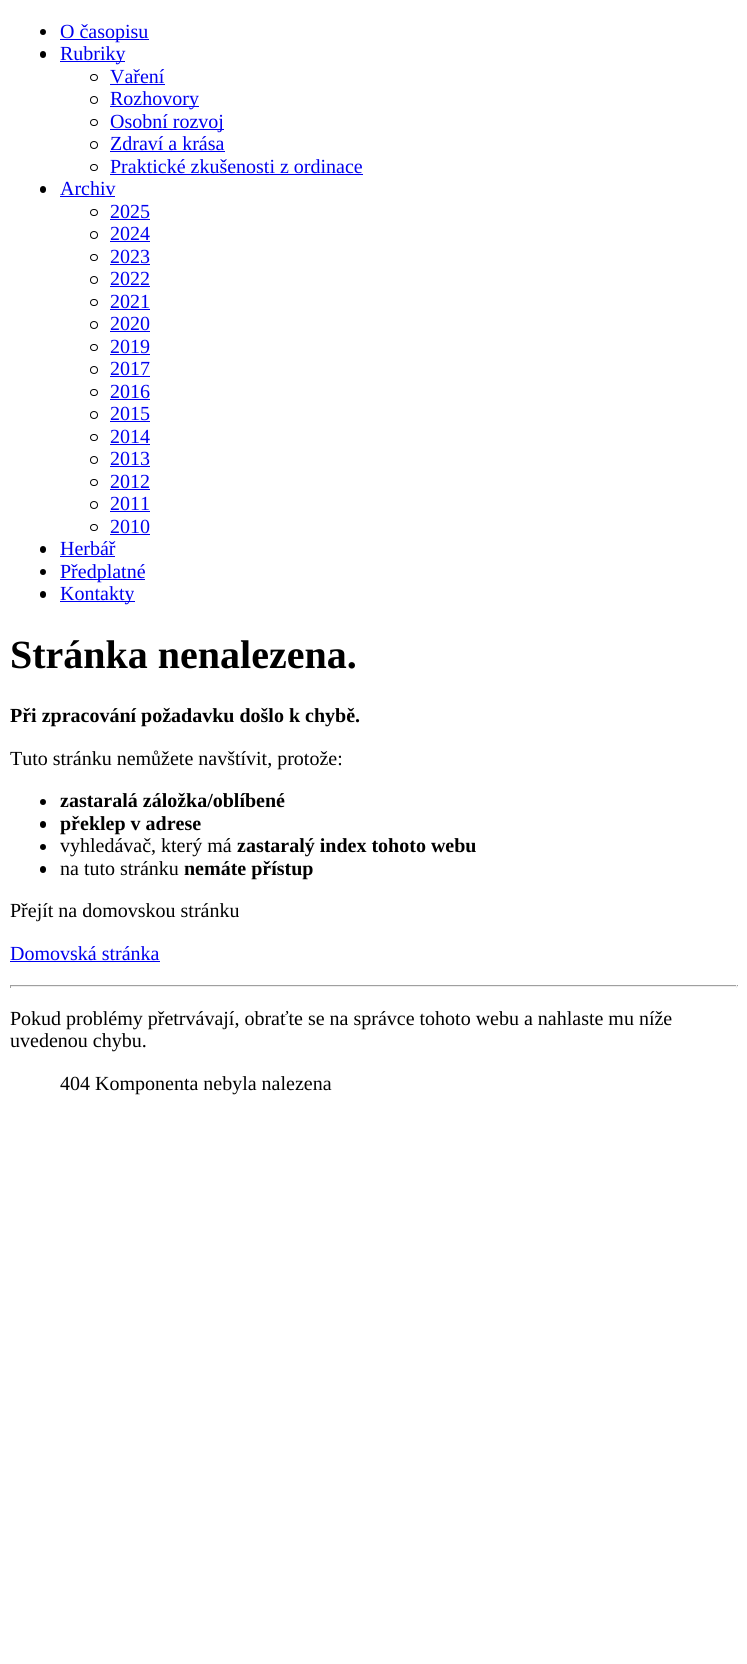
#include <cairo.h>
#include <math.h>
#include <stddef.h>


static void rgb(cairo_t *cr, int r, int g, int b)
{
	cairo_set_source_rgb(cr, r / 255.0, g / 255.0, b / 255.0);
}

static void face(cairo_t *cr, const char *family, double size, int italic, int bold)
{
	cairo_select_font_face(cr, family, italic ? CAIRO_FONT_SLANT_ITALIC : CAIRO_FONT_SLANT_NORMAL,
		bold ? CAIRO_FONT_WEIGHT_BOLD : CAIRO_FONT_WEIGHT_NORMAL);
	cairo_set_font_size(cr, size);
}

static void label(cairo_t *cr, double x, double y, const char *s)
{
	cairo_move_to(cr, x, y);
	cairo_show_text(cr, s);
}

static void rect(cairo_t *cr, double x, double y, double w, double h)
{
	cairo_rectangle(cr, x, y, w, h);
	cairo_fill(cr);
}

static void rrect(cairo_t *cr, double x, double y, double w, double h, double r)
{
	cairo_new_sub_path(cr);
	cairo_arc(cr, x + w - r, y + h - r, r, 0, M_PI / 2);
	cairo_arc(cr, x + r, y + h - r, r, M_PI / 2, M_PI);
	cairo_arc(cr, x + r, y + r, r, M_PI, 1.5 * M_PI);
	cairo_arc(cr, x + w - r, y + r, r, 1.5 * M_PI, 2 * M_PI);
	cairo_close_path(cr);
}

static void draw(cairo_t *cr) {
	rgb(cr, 255, 255, 255);
	cairo_paint(cr);
	rgb(cr, 0, 0, 0);
	cairo_arc(cr, 43, 32, 3, 0, 2 * M_PI);
	cairo_fill(cr);
	rgb(cr, 0, 0, 238);
	rect(cr, 60, 39, 89, 1);
	face(cr, "Liberation Serif", 20, 0, 0);
	label(cr, 60, 38, "O časopisu");
	rgb(cr, 0, 0, 0);
	rrect(cr, 40, 51, 6, 7, 3);
	cairo_fill(cr);
	rgb(cr, 0, 0, 238);
	rect(cr, 60, 61, 65, 1);
	label(cr, 60, 60, "Rubriky");
	rrect(cr, 90.5, 74.5, 7, 6, 3);
	rgb(cr, 0, 0, 0);
	cairo_set_line_width(cr, 1);
	cairo_stroke(cr);
	rgb(cr, 0, 0, 238);
	label(cr, 110, 83, "Vaření");
	rect(cr, 110, 84, 55, 1);
	cairo_new_path(cr);
	cairo_arc(cr, 94, 100, 3.5, 0, 2 * M_PI);
	rgb(cr, 0, 0, 0);
	cairo_stroke(cr);
	rgb(cr, 0, 0, 238);
	rect(cr, 110, 106, 89, 1);
	label(cr, 110, 105, "Rozhovory");
	rrect(cr, 90.5, 119.5, 7, 6, 3);
	rgb(cr, 0, 0, 0);
	cairo_stroke(cr);
	rgb(cr, 0, 0, 238);
	rect(cr, 110, 129, 114, 1);
	label(cr, 110, 128, "Osobní rozvoj");
	cairo_new_path(cr);
	cairo_arc(cr, 94, 145, 3.5, 0, 2 * M_PI);
	rgb(cr, 0, 0, 0);
	cairo_stroke(cr);
	rgb(cr, 0, 0, 238);
	label(cr, 110, 150, "Zdraví a krása");
	rect(cr, 110, 151, 115, 1);
	rrect(cr, 90.5, 164.5, 7, 6, 3);
	rgb(cr, 0, 0, 0);
	cairo_stroke(cr);
	rgb(cr, 0, 0, 238);
	label(cr, 110, 173, "Praktické zkušenosti z ordinace");
	rect(cr, 110, 174, 253, 1);
	rgb(cr, 0, 0, 0);
	rrect(cr, 40, 186, 6, 7, 3);
	cairo_fill(cr);
	rgb(cr, 0, 0, 238);
	label(cr, 60, 195, "Archiv");
	rect(cr, 60, 196, 55, 1);
	rrect(cr, 90.5, 209.5, 7, 6, 3);
	rgb(cr, 0, 0, 0);
	cairo_stroke(cr);
	rgb(cr, 0, 0, 238);
	label(cr, 110, 218, "2025");
	rect(cr, 110, 219, 40, 1);
	cairo_new_path(cr);
	cairo_arc(cr, 94, 235, 3.5, 0, 2 * M_PI);
	rgb(cr, 0, 0, 0);
	cairo_stroke(cr);
	rgb(cr, 0, 0, 238);
	label(cr, 110, 240, "2024");
	rect(cr, 110, 241, 40, 1);
	rrect(cr, 90.5, 254.5, 7, 6, 3);
	rgb(cr, 0, 0, 0);
	cairo_stroke(cr);
	rgb(cr, 0, 0, 238);
	label(cr, 110, 263, "2023");
	rect(cr, 110, 264, 40, 1);
	cairo_new_path(cr);
	cairo_arc(cr, 94, 280, 3.5, 0, 2 * M_PI);
	rgb(cr, 0, 0, 0);
	cairo_stroke(cr);
	rgb(cr, 0, 0, 238);
	label(cr, 110, 285, "2022");
	rect(cr, 110, 286, 40, 1);
	rrect(cr, 90.5, 299.5, 7, 6, 3);
	rgb(cr, 0, 0, 0);
	cairo_stroke(cr);
	rgb(cr, 0, 0, 238);
	label(cr, 110, 308, "2021");
	rect(cr, 110, 309, 40, 1);
	cairo_new_path(cr);
	cairo_arc(cr, 94, 325, 3.5, 0, 2 * M_PI);
	rgb(cr, 0, 0, 0);
	cairo_stroke(cr);
	rgb(cr, 0, 0, 238);
	label(cr, 110, 330, "2020");
	rect(cr, 110, 331, 40, 1);
	rrect(cr, 90.5, 344.5, 7, 6, 3);
	rgb(cr, 0, 0, 0);
	cairo_stroke(cr);
	rgb(cr, 0, 0, 238);
	label(cr, 110, 353, "2019");
	rect(cr, 110, 354, 40, 1);
	cairo_new_path(cr);
	cairo_arc(cr, 94, 370, 3.5, 0, 2 * M_PI);
	rgb(cr, 0, 0, 0);
	cairo_stroke(cr);
	rgb(cr, 0, 0, 238);
	label(cr, 110, 375, "2017");
	rect(cr, 110, 376, 40, 1);
	rrect(cr, 90.5, 389.5, 7, 6, 3);
	rgb(cr, 0, 0, 0);
	cairo_stroke(cr);
	rgb(cr, 0, 0, 238);
	label(cr, 110, 398, "2016");
	rect(cr, 110, 399, 40, 1);
	cairo_new_path(cr);
	cairo_arc(cr, 94, 415, 3.5, 0, 2 * M_PI);
	rgb(cr, 0, 0, 0);
	cairo_stroke(cr);
	rgb(cr, 0, 0, 238);
	label(cr, 110, 420, "2015");
	rect(cr, 110, 421, 40, 1);
	rrect(cr, 90.5, 434.5, 7, 6, 3);
	rgb(cr, 0, 0, 0);
	cairo_stroke(cr);
	rgb(cr, 0, 0, 238);
	label(cr, 110, 443, "2014");
	rect(cr, 110, 444, 40, 1);
	cairo_new_path(cr);
	cairo_arc(cr, 94, 460, 3.5, 0, 2 * M_PI);
	rgb(cr, 0, 0, 0);
	cairo_stroke(cr);
	rgb(cr, 0, 0, 238);
	label(cr, 110, 465, "2013");
	rect(cr, 110, 466, 40, 1);
	rrect(cr, 90.5, 479.5, 7, 6, 3);
	rgb(cr, 0, 0, 0);
	cairo_stroke(cr);
	rgb(cr, 0, 0, 238);
	label(cr, 110, 488, "2012");
	rect(cr, 110, 489, 40, 1);
	cairo_new_path(cr);
	cairo_arc(cr, 94, 505, 3.5, 0, 2 * M_PI);
	rgb(cr, 0, 0, 0);
	cairo_stroke(cr);
	rgb(cr, 0, 0, 238);
	label(cr, 110, 510, "2011");
	rect(cr, 110, 511, 40, 1);
	rrect(cr, 90.5, 524.5, 7, 6, 3);
	rgb(cr, 0, 0, 0);
	cairo_stroke(cr);
	rgb(cr, 0, 0, 238);
	label(cr, 110, 533, "2010");
	rect(cr, 110, 534, 40, 1);
	rgb(cr, 0, 0, 0);
	rrect(cr, 40, 546, 6, 7, 3);
	cairo_fill(cr);
	rgb(cr, 0, 0, 238);
	label(cr, 60, 555, "Herbář");
	rect(cr, 60, 556, 55, 1);
	rgb(cr, 0, 0, 0);
	cairo_new_path(cr);
	cairo_arc(cr, 43, 572, 3, 0, 2 * M_PI);
	cairo_fill(cr);
	rgb(cr, 0, 0, 238);
	rect(cr, 60, 579, 85, 1);
	label(cr, 60, 578, "Předplatné");
	rgb(cr, 0, 0, 0);
	rrect(cr, 40, 591, 6, 7, 3);
	cairo_fill(cr);
	rgb(cr, 0, 0, 238);
	rect(cr, 60, 601, 75, 1);
	label(cr, 60, 600, "Kontakty");
	face(cr, "Liberation Serif", 40, 0, 1);
	rgb(cr, 0, 0, 0);
	label(cr, 10, 668, "Stránka nenalezena.");
	face(cr, "Liberation Serif", 20, 0, 1);
	label(cr, 10, 722, "Při zpracování požadavku došlo k chybě.");
	face(cr, "Liberation Serif", 20, 0, 0);
	label(cr, 10, 765, "Tuto stránku nemůžete navštívit, protože:");
	cairo_new_path(cr);
	cairo_arc(cr, 43, 802, 3, 0, 2 * M_PI);
	cairo_fill(cr);
	face(cr, "Liberation Serif", 20, 0, 1);
	label(cr, 60, 807, "zastaralá záložka/oblíbené");
	rrect(cr, 40, 821, 6, 7, 3);
	cairo_fill(cr);
	label(cr, 60, 830, "překlep v adrese");
	cairo_new_path(cr);
	cairo_arc(cr, 43, 847, 3, 0, 2 * M_PI);
	cairo_fill(cr);
	face(cr, "Liberation Serif", 20, 0, 0);
	label(cr, 60, 852, "vyhledávač, který má");
	face(cr, "Liberation Serif", 20, 0, 1);
	label(cr, 237, 852, "zastaralý index tohoto webu");
	rrect(cr, 40, 866, 6, 7, 3);
	cairo_fill(cr);
	face(cr, "Liberation Serif", 20, 0, 0);
	label(cr, 60, 875, "na tuto stránku");
	face(cr, "Liberation Serif", 20, 0, 1);
	label(cr, 184, 875, "nemáte přístup");
	face(cr, "Liberation Serif", 20, 0, 0);
	label(cr, 10, 917, "Přejít na domovskou stránku");
	rgb(cr, 0, 0, 238);
	label(cr, 10, 960, "Domovská stránka");
	rect(cr, 10, 961, 150, 1);
	rgb(cr, 159, 159, 159);
	rect(cr, 10, 985, 728, 1);
	rgb(cr, 238, 238, 238);
	rect(cr, 736, 985, 1, 3);
	rect(cr, 10, 986, 728, 1);
	rgb(cr, 159, 159, 159);
	rect(cr, 10, 985, 1, 3);
	rgb(cr, 0, 0, 0);
	label(cr, 10, 1025, "Pokud problémy přetrvávají, obraťte se na správce tohoto webu a nahlaste mu níže");
	label(cr, 10, 1047, "uvedenou chybu.");
	label(cr, 60, 1090, "404 Komponenta nebyla nalezena");
}

int main(void) {
	cairo_surface_t *surface = cairo_image_surface_create(CAIRO_FORMAT_RGB24, 747, 1664);
	cairo_t *cr = cairo_create(surface);
	cairo_font_options_t *options = cairo_font_options_create();
	cairo_font_options_set_hint_metrics(options, CAIRO_HINT_METRICS_OFF);
	cairo_font_options_set_hint_style(options, CAIRO_HINT_STYLE_NONE);
	cairo_set_font_options(cr, options);
	cairo_set_miter_limit(cr, 4);
	draw(cr);
	cairo_surface_write_to_png(surface, "render.png");
	cairo_font_options_destroy(options);
	cairo_destroy(cr);
	cairo_surface_destroy(surface);
	return 0;
}
